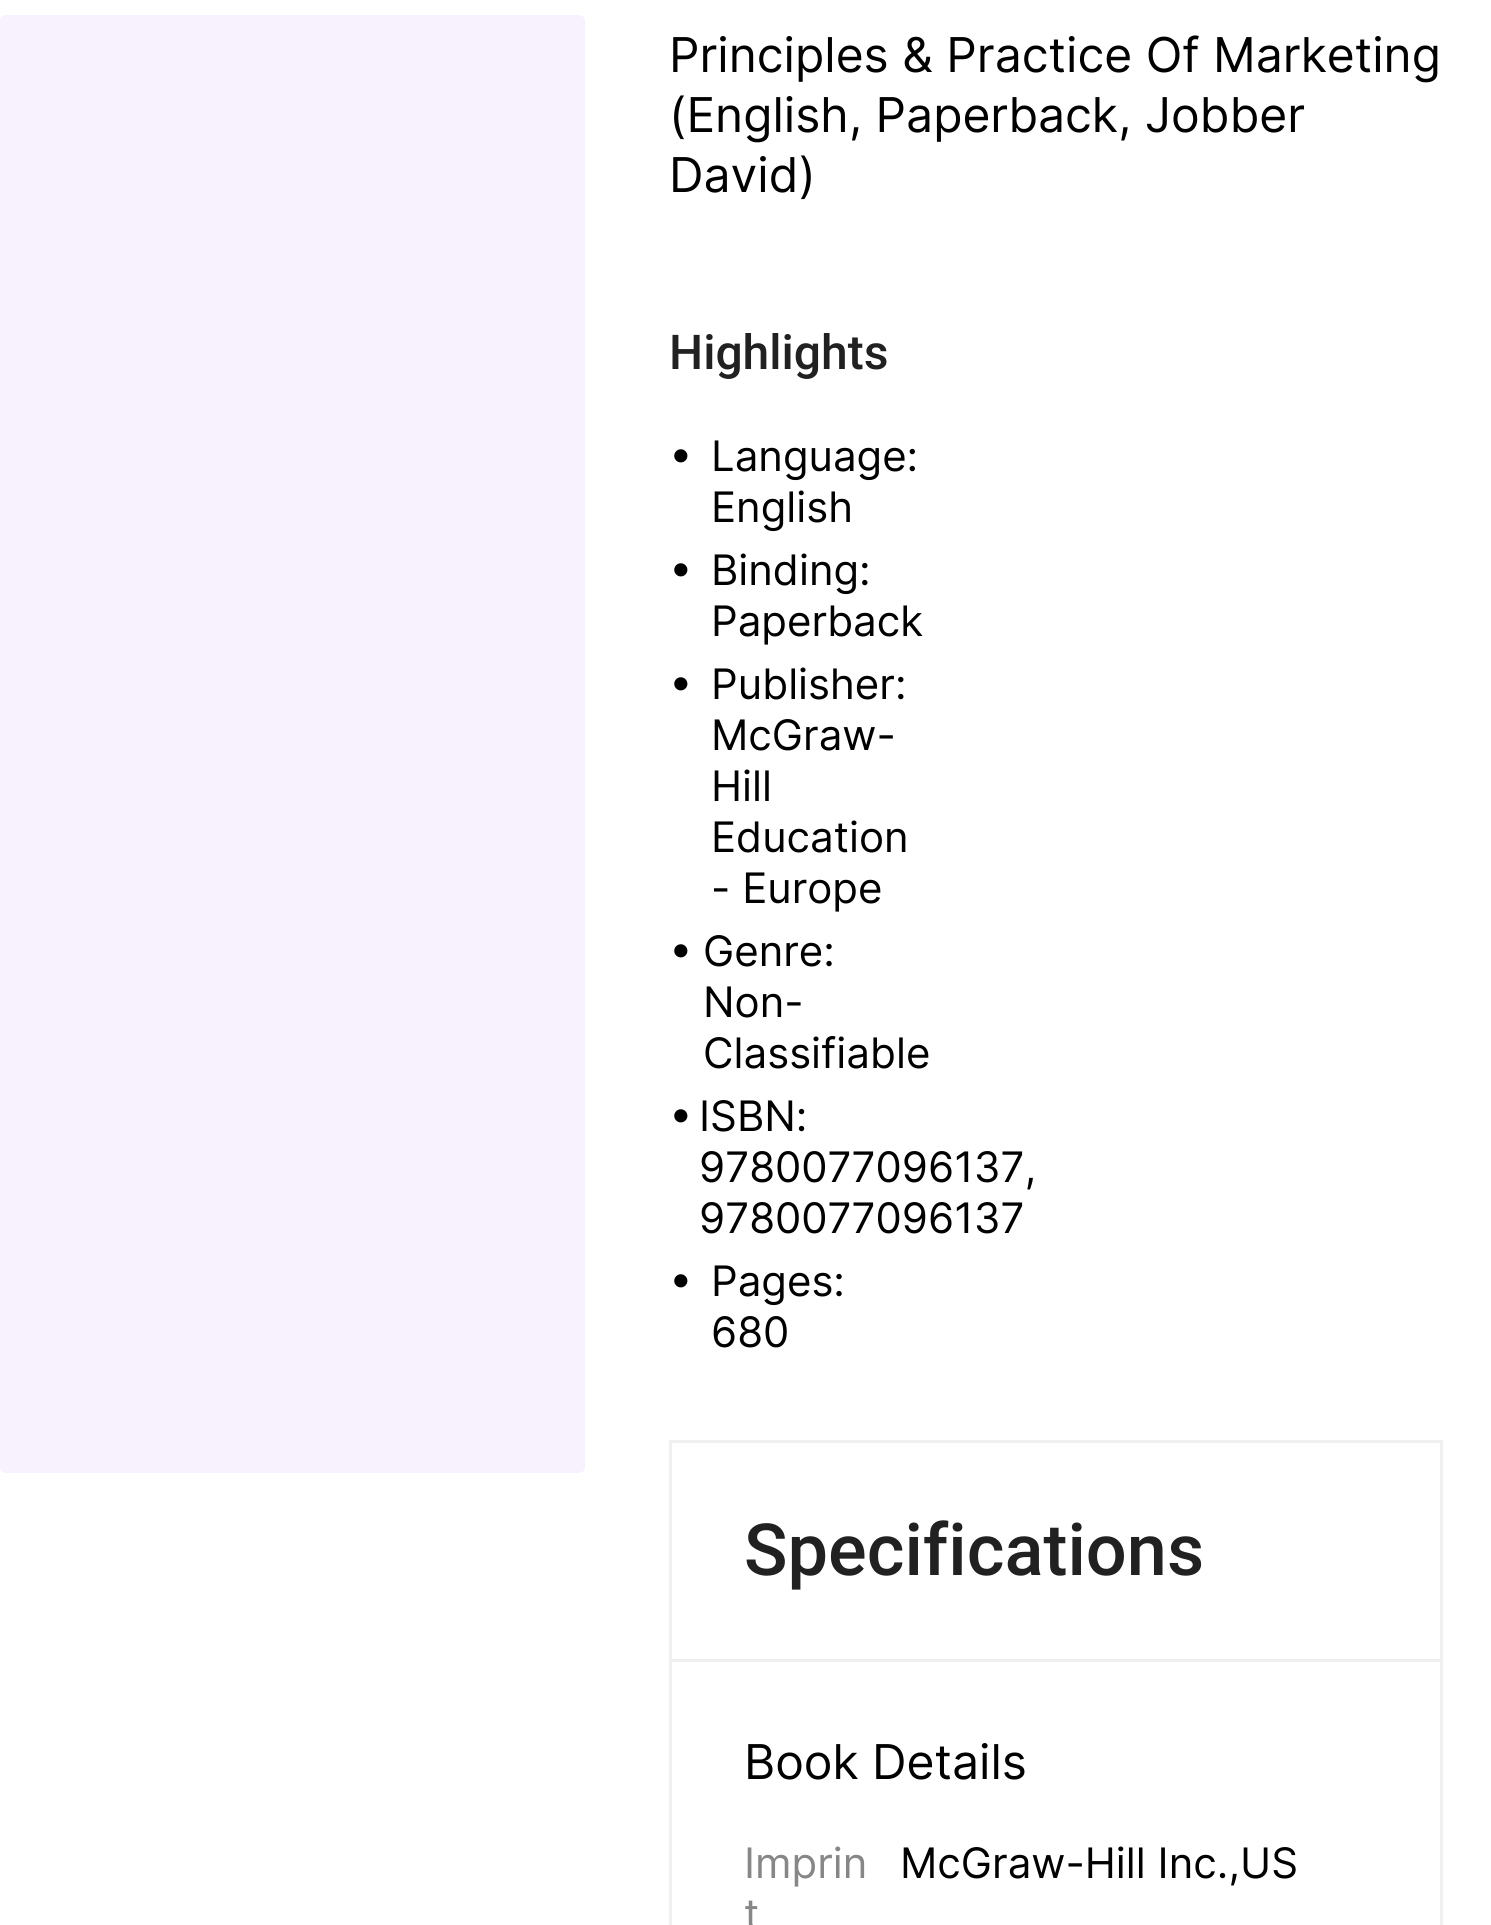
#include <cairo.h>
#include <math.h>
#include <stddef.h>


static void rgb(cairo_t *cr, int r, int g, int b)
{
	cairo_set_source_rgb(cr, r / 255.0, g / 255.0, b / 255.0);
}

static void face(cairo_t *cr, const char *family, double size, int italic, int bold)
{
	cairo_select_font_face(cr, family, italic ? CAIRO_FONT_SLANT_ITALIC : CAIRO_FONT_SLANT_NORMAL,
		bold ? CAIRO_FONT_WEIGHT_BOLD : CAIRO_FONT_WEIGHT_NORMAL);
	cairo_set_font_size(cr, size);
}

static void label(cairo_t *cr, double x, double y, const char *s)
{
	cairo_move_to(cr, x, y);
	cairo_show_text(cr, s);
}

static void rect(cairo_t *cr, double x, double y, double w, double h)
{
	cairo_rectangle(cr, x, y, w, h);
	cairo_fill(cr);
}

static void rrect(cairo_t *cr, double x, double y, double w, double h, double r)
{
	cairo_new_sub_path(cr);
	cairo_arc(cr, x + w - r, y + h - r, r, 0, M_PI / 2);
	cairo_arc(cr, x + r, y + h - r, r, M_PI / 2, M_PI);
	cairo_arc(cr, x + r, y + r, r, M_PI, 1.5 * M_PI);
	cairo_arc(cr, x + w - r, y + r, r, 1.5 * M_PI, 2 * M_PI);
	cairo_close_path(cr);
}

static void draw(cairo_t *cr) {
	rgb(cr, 255, 255, 255);
	cairo_paint(cr);
	rgb(cr, 248, 242, 254);
	rrect(cr, 0, 15, 585, 1458, 6);
	cairo_fill(cr);
	face(cr, "Inter", 48, 0, 0);
	rgb(cr, 0, 0, 0);
	label(cr, 669, 72, "Principles & Practice Of Marketing");
	label(cr, 669, 132, "(English, Paperback, Jobber");
	label(cr, 669, 192, "David)");
	face(cr, "Roboto Medium", 48, 0, 0);
	rgb(cr, 33, 33, 33);
	label(cr, 669, 369, "Highlights");
	face(cr, "Inter", 42, 0, 0);
	rgb(cr, 0, 0, 0);
	label(cr, 669, 468, "•");
	label(cr, 711, 471, "Language:");
	label(cr, 711, 522, "English");
	label(cr, 669, 582, "•");
	label(cr, 711, 585, "Binding:");
	label(cr, 711, 636, "Paperback");
	label(cr, 669, 696, "•");
	label(cr, 711, 699, "Publisher:");
	label(cr, 711, 750, "McGraw-");
	label(cr, 711, 801, "Hill");
	label(cr, 711, 852, "Education");
	label(cr, 711, 903, "- Europe");
	label(cr, 669, 963, "•");
	label(cr, 703, 966, "Genre:");
	label(cr, 703, 1017, "Non-");
	label(cr, 703, 1068, "Classifiable");
	label(cr, 669, 1128, "•");
	label(cr, 699, 1131, "ISBN:");
	label(cr, 699, 1182, "9780077096137,");
	label(cr, 699, 1233, "9780077096137");
	label(cr, 669, 1293, "•");
	label(cr, 711, 1296, "Pages:");
	label(cr, 711, 1347, "680");
	cairo_rectangle(cr, 670.5, 1441.5, 771, 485);
	rgb(cr, 240, 240, 240);
	cairo_set_line_width(cr, 3);
	cairo_stroke(cr);
	face(cr, "Roboto Medium", 72, 0, 0);
	rgb(cr, 33, 33, 33);
	label(cr, 744, 1575, "Specifications");
	rgb(cr, 240, 240, 240);
	rect(cr, 672, 1659, 768, 3);
	face(cr, "Inter", 48, 0, 0);
	rgb(cr, 0, 0, 0);
	label(cr, 744, 1779, "Book Details");
	face(cr, "Inter", 42, 0, 0);
	rgb(cr, 135, 135, 135);
	label(cr, 744, 1878, "Imprin");
	label(cr, 744, 1929, "t");
	rgb(cr, 0, 0, 0);
	label(cr, 900, 1878, "McGraw-Hill Inc.,US");
}

int main(void) {
	cairo_surface_t *surface = cairo_image_surface_create(CAIRO_FORMAT_RGB24, 1491, 1925);
	cairo_t *cr = cairo_create(surface);
	cairo_font_options_t *options = cairo_font_options_create();
	cairo_font_options_set_hint_metrics(options, CAIRO_HINT_METRICS_OFF);
	cairo_font_options_set_hint_style(options, CAIRO_HINT_STYLE_NONE);
	cairo_set_font_options(cr, options);
	cairo_set_miter_limit(cr, 4);
	draw(cr);
	cairo_surface_write_to_png(surface, "render.png");
	cairo_font_options_destroy(options);
	cairo_destroy(cr);
	cairo_surface_destroy(surface);
	return 0;
}
